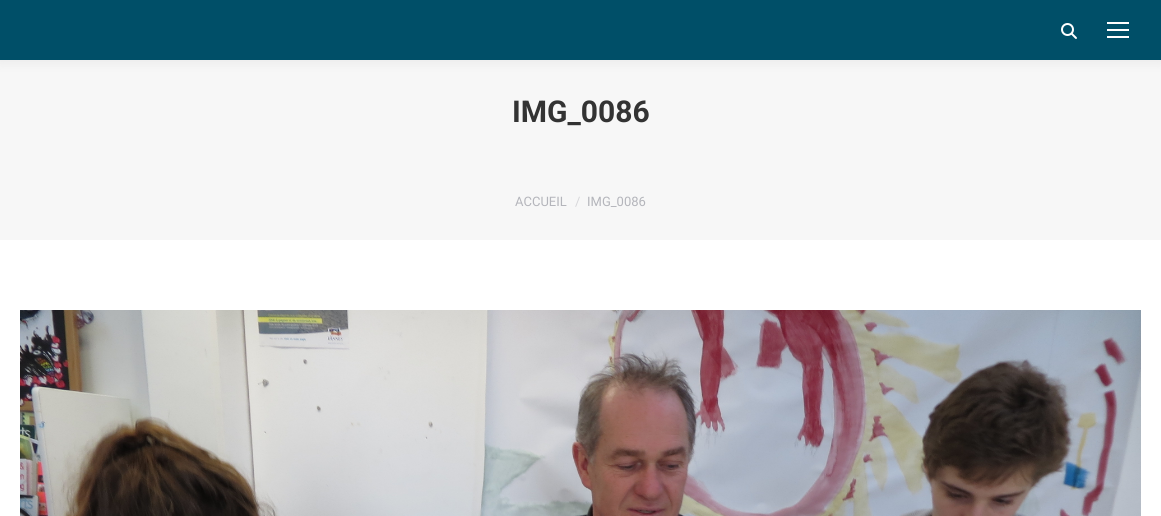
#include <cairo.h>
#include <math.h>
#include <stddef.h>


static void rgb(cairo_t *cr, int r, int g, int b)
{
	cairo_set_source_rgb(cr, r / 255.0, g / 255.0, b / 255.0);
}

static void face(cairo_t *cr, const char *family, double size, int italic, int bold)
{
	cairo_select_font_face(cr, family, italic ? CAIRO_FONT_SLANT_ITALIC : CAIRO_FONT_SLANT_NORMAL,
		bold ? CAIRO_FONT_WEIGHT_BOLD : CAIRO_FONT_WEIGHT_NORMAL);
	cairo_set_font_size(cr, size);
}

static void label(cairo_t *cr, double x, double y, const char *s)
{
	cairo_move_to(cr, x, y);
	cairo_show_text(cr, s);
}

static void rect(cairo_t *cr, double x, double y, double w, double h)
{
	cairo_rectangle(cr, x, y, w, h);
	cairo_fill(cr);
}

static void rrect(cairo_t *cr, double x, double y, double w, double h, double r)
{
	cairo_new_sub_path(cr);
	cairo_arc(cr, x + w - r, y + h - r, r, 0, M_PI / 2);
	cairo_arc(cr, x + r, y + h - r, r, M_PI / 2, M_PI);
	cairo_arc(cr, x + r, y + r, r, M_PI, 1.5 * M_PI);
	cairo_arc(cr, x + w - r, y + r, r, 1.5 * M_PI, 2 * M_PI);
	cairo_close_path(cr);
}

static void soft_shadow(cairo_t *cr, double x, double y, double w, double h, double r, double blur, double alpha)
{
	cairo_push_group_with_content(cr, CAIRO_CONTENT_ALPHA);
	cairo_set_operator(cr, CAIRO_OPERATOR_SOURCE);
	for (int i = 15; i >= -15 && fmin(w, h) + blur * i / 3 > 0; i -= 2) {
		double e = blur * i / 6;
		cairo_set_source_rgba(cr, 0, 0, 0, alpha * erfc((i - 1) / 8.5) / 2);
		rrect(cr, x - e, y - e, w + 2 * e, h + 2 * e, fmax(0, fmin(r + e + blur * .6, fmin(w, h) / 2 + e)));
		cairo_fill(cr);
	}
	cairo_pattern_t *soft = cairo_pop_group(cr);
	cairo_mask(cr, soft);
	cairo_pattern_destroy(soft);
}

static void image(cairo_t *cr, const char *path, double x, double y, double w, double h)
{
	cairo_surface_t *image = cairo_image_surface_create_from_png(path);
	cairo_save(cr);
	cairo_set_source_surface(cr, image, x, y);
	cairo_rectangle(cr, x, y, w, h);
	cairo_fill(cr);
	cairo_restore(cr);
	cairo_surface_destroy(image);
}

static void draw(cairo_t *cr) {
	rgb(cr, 255, 255, 255);
	cairo_paint(cr);
	rgb(cr, 247, 247, 247);
	rect(cr, 0, 60, 1161, 180);
	rgb(cr, 0, 0, 0);
	soft_shadow(cr, -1, -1, 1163, 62, 0, 7.5, 0.07);
	rgb(cr, 0, 79, 104);
	rect(cr, 0, 0, 1161, 60);
	image(cr, "image0.png", 1061, 23, 16, 16);
	rgb(cr, 255, 255, 255);
	rect(cr, 1107, 22, 22, 2);
	rect(cr, 1107, 29, 22, 2);
	rect(cr, 1107, 36, 22, 2);
	face(cr, "Roboto", 30, 0, 1);
	rgb(cr, 51, 51, 51);
	label(cr, 512, 122, "IMG_0086");
	face(cr, "Roboto", 13, 0, 0);
	rgb(cr, 180, 181, 187);
	label(cr, 515, 206, "ACCUEIL");
	rgb(cr, 214, 214, 217);
	label(cr, 575, 206, "/");
	rgb(cr, 180, 181, 187);
	label(cr, 587, 206, "IMG_0086");
	image(cr, "image1.png", 20, 310, 1121, 206);
}

int main(void) {
	cairo_surface_t *surface = cairo_image_surface_create(CAIRO_FORMAT_RGB24, 1161, 516);
	cairo_t *cr = cairo_create(surface);
	cairo_font_options_t *options = cairo_font_options_create();
	cairo_font_options_set_hint_metrics(options, CAIRO_HINT_METRICS_OFF);
	cairo_font_options_set_hint_style(options, CAIRO_HINT_STYLE_NONE);
	cairo_set_font_options(cr, options);
	cairo_set_miter_limit(cr, 4);
	draw(cr);
	cairo_surface_write_to_png(surface, "render.png");
	cairo_font_options_destroy(options);
	cairo_destroy(cr);
	cairo_surface_destroy(surface);
	return 0;
}
